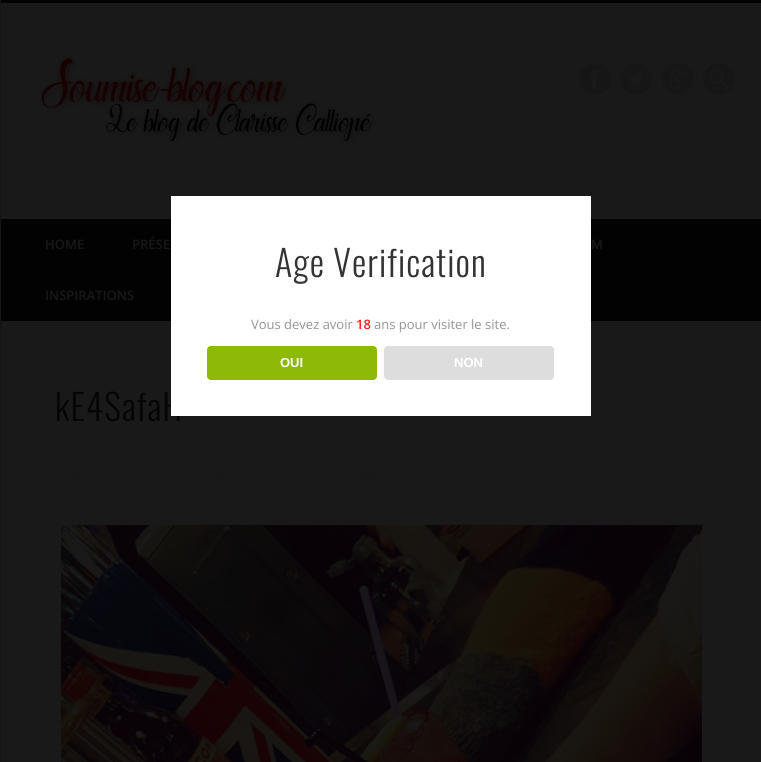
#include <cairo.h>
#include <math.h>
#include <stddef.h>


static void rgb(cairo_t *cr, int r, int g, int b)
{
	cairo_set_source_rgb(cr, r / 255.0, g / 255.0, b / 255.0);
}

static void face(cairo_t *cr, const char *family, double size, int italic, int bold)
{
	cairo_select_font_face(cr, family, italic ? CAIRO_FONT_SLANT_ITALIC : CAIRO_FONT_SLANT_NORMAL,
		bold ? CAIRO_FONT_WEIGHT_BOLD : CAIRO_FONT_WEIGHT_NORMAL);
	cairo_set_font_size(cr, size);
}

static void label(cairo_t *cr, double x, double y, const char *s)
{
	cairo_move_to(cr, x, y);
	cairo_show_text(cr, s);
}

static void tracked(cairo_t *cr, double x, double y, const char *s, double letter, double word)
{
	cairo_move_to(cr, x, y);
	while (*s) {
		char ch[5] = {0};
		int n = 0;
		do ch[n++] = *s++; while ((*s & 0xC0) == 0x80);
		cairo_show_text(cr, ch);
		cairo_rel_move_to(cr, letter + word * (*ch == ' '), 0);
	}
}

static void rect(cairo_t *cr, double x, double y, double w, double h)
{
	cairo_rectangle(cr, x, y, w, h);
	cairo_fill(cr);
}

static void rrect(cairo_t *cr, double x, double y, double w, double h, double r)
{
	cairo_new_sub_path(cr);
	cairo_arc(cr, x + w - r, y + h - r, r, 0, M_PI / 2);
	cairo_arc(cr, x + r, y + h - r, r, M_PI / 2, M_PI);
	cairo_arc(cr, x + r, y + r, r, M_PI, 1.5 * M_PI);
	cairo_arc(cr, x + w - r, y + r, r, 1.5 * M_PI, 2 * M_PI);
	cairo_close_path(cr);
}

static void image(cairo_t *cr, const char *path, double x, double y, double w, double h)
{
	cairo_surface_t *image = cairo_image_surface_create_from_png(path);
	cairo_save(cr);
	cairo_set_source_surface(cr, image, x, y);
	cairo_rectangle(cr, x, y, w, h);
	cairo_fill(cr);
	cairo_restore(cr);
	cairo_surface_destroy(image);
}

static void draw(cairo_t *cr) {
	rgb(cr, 20, 20, 20);
	cairo_paint(cr);
	rgb(cr, 25, 25, 25);
	rect(cr, 1, 3, 760, 759);
	rgb(cr, 2, 2, 2);
	rect(cr, 1, 0, 760, 3);
	image(cr, "image0.png", 34, 54, 344, 91);
	image(cr, "image1.png", 579, 63, 32, 32);
	image(cr, "image2.png", 620, 63, 32, 32);
	image(cr, "image3.png", 662, 63, 32, 32);
	rgb(cr, 22, 22, 22);
	cairo_arc(cr, 719, 79, 16, 0, 2 * M_PI);
	cairo_fill(cr);
	image(cr, "image4.png", 709, 69, 20, 20);
	rgb(cr, 2, 2, 2);
	rect(cr, 1, 219, 760, 102);
	face(cr, "Open Sans SemiBold", 13, 0, 0);
	rgb(cr, 24, 24, 24);
	label(cr, 45, 249, "HOME");
	label(cr, 132, 249, "PRÉSE");
	label(cr, 591, 249, "M");
	label(cr, 45, 300, "INSPIRATIONS");
	face(cr, "Oswald Light", 36, 0, 0);
	rgb(cr, 5, 5, 5);
	tracked(cr, 55, 421, "kE4SafaH", 1, 0);
	image(cr, "image5.png", 71, 467, 12, 12);
	image(cr, "image6.png", 215, 467, 12, 12);
	image(cr, "image7.png", 360, 467, 15, 12);
	image(cr, "image8.png", 61, 525, 641, 237);
	rgb(cr, 255, 255, 255);
	rect(cr, 171, 196, 420, 220);
	rgb(cr, 51, 51, 51);
	tracked(cr, 275, 277, "Age Verification", 1, 0);
	face(cr, "Open Sans", 13, 0, 0);
	rgb(cr, 149, 149, 149);
	label(cr, 251, 329, "Vous devez avoir");
	face(cr, "Open Sans SemiBold", 13, 0, 0);
	rgb(cr, 255, 31, 31);
	label(cr, 356, 329, "18");
	face(cr, "Open Sans", 13, 0, 0);
	rgb(cr, 149, 149, 149);
	label(cr, 374, 329, "ans pour visiter le site.");
	rgb(cr, 142, 185, 8);
	rrect(cr, 207, 346, 170, 34, 4);
	cairo_fill(cr);
	face(cr, "Liberation Sans", 13, 0, 1);
	rgb(cr, 255, 255, 255);
	label(cr, 280, 367, "OUI");
	rgb(cr, 221, 221, 221);
	rrect(cr, 384, 346, 170, 34, 4);
	cairo_fill(cr);
	rgb(cr, 255, 255, 255);
	label(cr, 454, 367, "NON");
}

int main(void) {
	cairo_surface_t *surface = cairo_image_surface_create(CAIRO_FORMAT_RGB24, 761, 762);
	cairo_t *cr = cairo_create(surface);
	cairo_font_options_t *options = cairo_font_options_create();
	cairo_font_options_set_hint_metrics(options, CAIRO_HINT_METRICS_OFF);
	cairo_font_options_set_hint_style(options, CAIRO_HINT_STYLE_NONE);
	cairo_set_font_options(cr, options);
	cairo_set_miter_limit(cr, 4);
	draw(cr);
	cairo_surface_write_to_png(surface, "render.png");
	cairo_font_options_destroy(options);
	cairo_destroy(cr);
	cairo_surface_destroy(surface);
	return 0;
}
